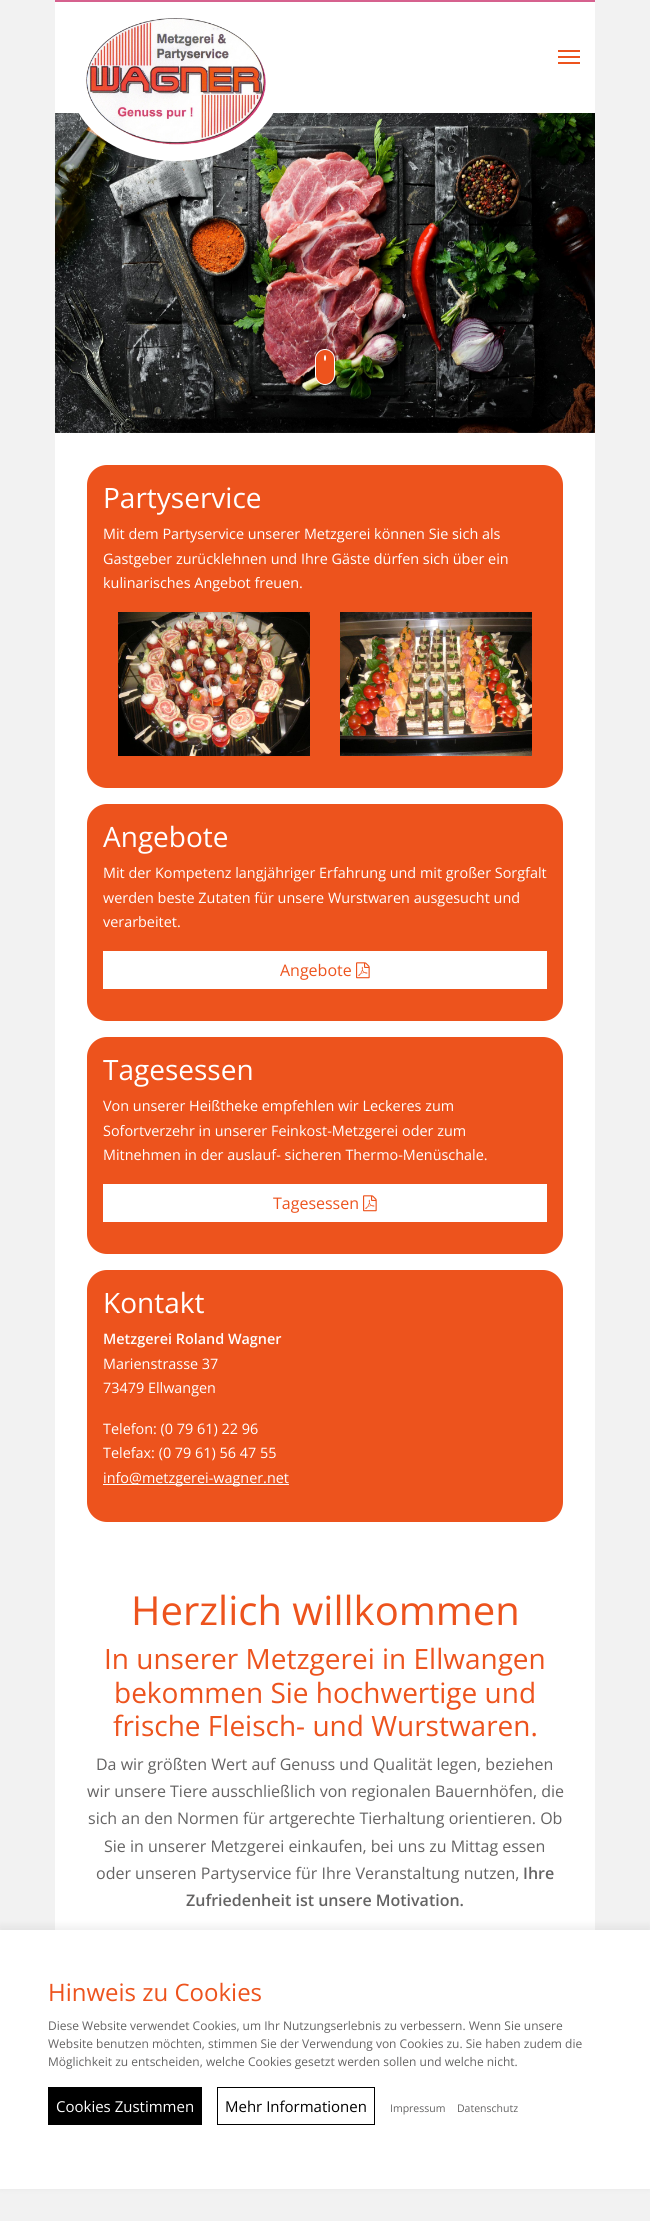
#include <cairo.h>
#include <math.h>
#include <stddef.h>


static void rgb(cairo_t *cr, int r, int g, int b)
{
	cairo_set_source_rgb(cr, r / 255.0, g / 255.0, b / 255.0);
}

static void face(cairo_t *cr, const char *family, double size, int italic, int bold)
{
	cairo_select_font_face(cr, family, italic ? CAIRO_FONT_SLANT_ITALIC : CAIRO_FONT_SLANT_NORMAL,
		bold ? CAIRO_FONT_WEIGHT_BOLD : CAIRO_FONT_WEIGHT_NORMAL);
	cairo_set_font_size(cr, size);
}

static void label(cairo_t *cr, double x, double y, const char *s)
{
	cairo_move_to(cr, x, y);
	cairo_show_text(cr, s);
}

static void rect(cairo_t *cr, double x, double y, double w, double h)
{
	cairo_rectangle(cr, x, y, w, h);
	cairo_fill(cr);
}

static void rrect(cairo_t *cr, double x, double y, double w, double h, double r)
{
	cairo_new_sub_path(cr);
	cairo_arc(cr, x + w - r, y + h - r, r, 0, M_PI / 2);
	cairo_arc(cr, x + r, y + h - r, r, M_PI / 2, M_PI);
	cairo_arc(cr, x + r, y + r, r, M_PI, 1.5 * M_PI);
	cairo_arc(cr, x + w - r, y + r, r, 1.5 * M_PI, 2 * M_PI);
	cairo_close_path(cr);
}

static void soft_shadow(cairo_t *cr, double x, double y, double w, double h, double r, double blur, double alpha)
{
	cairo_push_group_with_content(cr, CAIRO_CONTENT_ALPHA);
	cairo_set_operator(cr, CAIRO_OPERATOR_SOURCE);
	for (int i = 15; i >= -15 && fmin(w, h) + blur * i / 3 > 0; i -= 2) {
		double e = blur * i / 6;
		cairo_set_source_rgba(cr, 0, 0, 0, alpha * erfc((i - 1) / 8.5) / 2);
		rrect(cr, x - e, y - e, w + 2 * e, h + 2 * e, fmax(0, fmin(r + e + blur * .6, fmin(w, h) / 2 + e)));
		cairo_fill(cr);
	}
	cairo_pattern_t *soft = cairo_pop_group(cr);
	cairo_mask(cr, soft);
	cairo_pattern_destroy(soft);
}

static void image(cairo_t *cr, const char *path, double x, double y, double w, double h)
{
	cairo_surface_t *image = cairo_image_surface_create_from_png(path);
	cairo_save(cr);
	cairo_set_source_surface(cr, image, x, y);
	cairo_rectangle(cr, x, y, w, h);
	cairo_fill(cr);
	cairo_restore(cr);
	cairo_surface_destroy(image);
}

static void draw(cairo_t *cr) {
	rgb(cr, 242, 242, 242);
	cairo_paint(cr);
	rgb(cr, 214, 97, 142);
	rect(cr, 55, 0, 540, 2);
	rgb(cr, 255, 255, 255);
	rect(cr, 55, 2, 540, 111);
	image(cr, "image1.png", 55, 113, 540, 320);
	cairo_new_path(cr);
	cairo_move_to(cr, 176, 2);
	cairo_curve_to(cr, 234.5, 2, 282, 37.5, 282, 81.5);
	cairo_curve_to(cr, 282, 125.5, 234.5, 161, 176, 161);
	cairo_curve_to(cr, 117.5, 161, 70, 125.5, 70, 81.5);
	cairo_curve_to(cr, 70, 37.5, 117.5, 2, 176, 2);
	cairo_close_path(cr);
	cairo_fill(cr);
	image(cr, "image0.png", 86, 18, 180, 127);
	rgb(cr, 237, 83, 29);
	rect(cr, 558, 50, 22, 2);
	rect(cr, 558, 56, 22, 2);
	rect(cr, 558, 62, 22, 2);
	rrect(cr, 315.5, 349.5, 19, 35, 9.5);
	cairo_fill_preserve(cr);
	rgb(cr, 255, 255, 255);
	cairo_set_line_width(cr, 1);
	cairo_stroke(cr);
	cairo_new_path(cr);
	cairo_move_to(cr, 325, 355);
	cairo_curve_to(cr, 325.5, 355, 326, 356.5, 326, 358);
	cairo_curve_to(cr, 326, 359.5, 325.5, 361, 325, 361);
	cairo_curve_to(cr, 324.5, 361, 324, 359.5, 324, 358);
	cairo_curve_to(cr, 324, 356.5, 324.5, 355, 325, 355);
	cairo_close_path(cr);
	cairo_fill(cr);
	rect(cr, 55, 433, 540, 1497);
	rgb(cr, 237, 83, 29);
	rrect(cr, 87, 465, 476, 323, 20);
	cairo_fill(cr);
	face(cr, "Open Sans", 28, 0, 0);
	rgb(cr, 255, 255, 255);
	label(cr, 103, 508, "Partyservice");
	face(cr, "Open Sans", 14.4, 0, 0);
	label(cr, 103, 539, "Mit dem Partyservice unserer Metzgerei können Sie sich als");
	label(cr, 103, 564, "Gastgeber zurücklehnen und Ihre Gäste dürfen sich über ein");
	label(cr, 103, 588, "kulinarisches Angebot freuen.");
	image(cr, "image2.png", 118, 612, 192, 144);
	image(cr, "image3.png", 203, 674, 23, 23);
	image(cr, "image4.png", 340, 612, 192, 144);
	image(cr, "image5.png", 425, 674, 23, 23);
	rgb(cr, 237, 83, 29);
	rrect(cr, 87, 804, 476, 217, 20);
	cairo_fill(cr);
	face(cr, "Open Sans", 28, 0, 0);
	rgb(cr, 255, 255, 255);
	label(cr, 103, 847, "Angebote");
	face(cr, "Open Sans", 14.4, 0, 0);
	label(cr, 103, 878, "Mit der Kompetenz langjähriger Erfahrung und mit großer Sorgfalt");
	label(cr, 103, 903, "werden beste Zutaten für unsere Wurstwaren ausgesucht und");
	label(cr, 103, 927, "verarbeitet.");
	rect(cr, 103, 951, 444, 38);
	face(cr, "Open Sans", 16, 0, 0);
	rgb(cr, 237, 83, 29);
	label(cr, 280, 976, "Angebote");
	image(cr, "image6.png", 356, 962, 14, 17);
	rrect(cr, 87, 1037, 476, 217, 20);
	cairo_fill(cr);
	face(cr, "Open Sans", 28, 0, 0);
	rgb(cr, 255, 255, 255);
	label(cr, 103, 1080, "Tagesessen");
	face(cr, "Open Sans", 14.4, 0, 0);
	label(cr, 103, 1111, "Von unserer Heißtheke empfehlen wir Leckeres zum");
	label(cr, 103, 1136, "Sofortverzehr in unserer Feinkost-Metzgerei oder zum");
	label(cr, 103, 1160, "Mitnehmen in der auslauf- sicheren Thermo-Menüschale.");
	rect(cr, 103, 1184, 444, 38);
	face(cr, "Open Sans", 16, 0, 0);
	rgb(cr, 237, 83, 29);
	label(cr, 273, 1209, "Tagesessen");
	image(cr, "image6.png", 363, 1195, 14, 17);
	rrect(cr, 87, 1270, 476, 252, 20);
	cairo_fill(cr);
	face(cr, "Open Sans", 28, 0, 0);
	rgb(cr, 255, 255, 255);
	label(cr, 103, 1313, "Kontakt");
	face(cr, "Open Sans SemiBold", 14.4, 0, 0);
	label(cr, 103, 1344, "Metzgerei Roland Wagner");
	face(cr, "Open Sans", 14.4, 0, 0);
	label(cr, 103, 1369, "Marienstrasse 37");
	label(cr, 103, 1393, "73479 Ellwangen");
	label(cr, 103, 1434, "Telefon: (0 79 61) 22 96");
	label(cr, 103, 1458, "Telefax: (0 79 61) 56 47 55");
	rect(cr, 103, 1484, 186, 1);
	label(cr, 103, 1483, "info@metzgerei-wagner.net");
	face(cr, "Open Sans", 40, 0, 0);
	rgb(cr, 237, 83, 29);
	label(cr, 131, 1625, "Herzlich willkommen");
	face(cr, "Open Sans", 28, 0, 0);
	label(cr, 104, 1669, "In unserer Metzgerei in Ellwangen");
	label(cr, 114, 1703, "bekommen Sie hochwertige und");
	label(cr, 113, 1736, "frische Fleisch- und Wurstwaren.");
	face(cr, "Open Sans", 16, 0, 0);
	rgb(cr, 100, 99, 99);
	label(cr, 96, 1770, "Da wir größten Wert auf Genuss und Qualität legen, beziehen");
	label(cr, 87, 1797, "wir unsere Tiere ausschließlich von regionalen Bauernhöfen, die");
	label(cr, 88, 1824, "sich an den Normen für artgerechte Tierhaltung orientieren. Ob");
	label(cr, 104, 1852, "Sie in unserer Metzgerei einkaufen, bei uns zu Mittag essen");
	label(cr, 96, 1879, "oder unseren Partyservice für Ihre Veranstaltung nutzen,");
	face(cr, "Open Sans SemiBold", 16, 0, 0);
	label(cr, 523, 1879, "Ihre");
	label(cr, 186, 1906, "Zufriedenheit ist unsere Motivation.");
	rgb(cr, 0, 0, 0);
	soft_shadow(cr, 0, 1927, 650, 259, 0, 5, 0.08);
	rgb(cr, 255, 255, 255);
	rect(cr, 0, 1930, 650, 259);
	face(cr, "Open Sans", 24, 0, 0);
	rgb(cr, 237, 83, 29);
	label(cr, 48, 2001, "Hinweis zu Cookies");
	face(cr, "Open Sans", 12, 0, 0);
	rgb(cr, 100, 99, 99);
	label(cr, 48, 2030, "Diese Website verwendet Cookies, um Ihr Nutzungserlebnis zu verbessern. Wenn Sie unsere");
	label(cr, 48, 2048, "Website benutzen möchten, stimmen Sie der Verwendung von Cookies zu. Sie haben zudem die");
	label(cr, 48, 2066, "Möglichkeit zu entscheiden, welche Cookies gesetzt werden sollen und welche nicht.");
	rgb(cr, 0, 0, 0);
	rect(cr, 48, 2087, 154, 38);
	face(cr, "Open Sans", 15, 0, 0);
	rgb(cr, 255, 255, 255);
	label(cr, 56, 2112, "Cookies Zustimmen");
	cairo_rectangle(cr, 217.5, 2087.5, 157, 37);
	rgb(cr, 0, 0, 0);
	cairo_stroke(cr);
	label(cr, 225, 2112, "Mehr Informationen");
	face(cr, "Open Sans", 10.5, 0, 0);
	rgb(cr, 100, 99, 99);
	label(cr, 390, 2112, "Impressum");
	label(cr, 457, 2112, "Datenschutz");
}

int main(void) {
	cairo_surface_t *surface = cairo_image_surface_create(CAIRO_FORMAT_RGB24, 650, 2221);
	cairo_t *cr = cairo_create(surface);
	cairo_font_options_t *options = cairo_font_options_create();
	cairo_font_options_set_hint_metrics(options, CAIRO_HINT_METRICS_OFF);
	cairo_font_options_set_hint_style(options, CAIRO_HINT_STYLE_NONE);
	cairo_set_font_options(cr, options);
	cairo_set_miter_limit(cr, 4);
	draw(cr);
	cairo_surface_write_to_png(surface, "render.png");
	cairo_font_options_destroy(options);
	cairo_destroy(cr);
	cairo_surface_destroy(surface);
	return 0;
}
